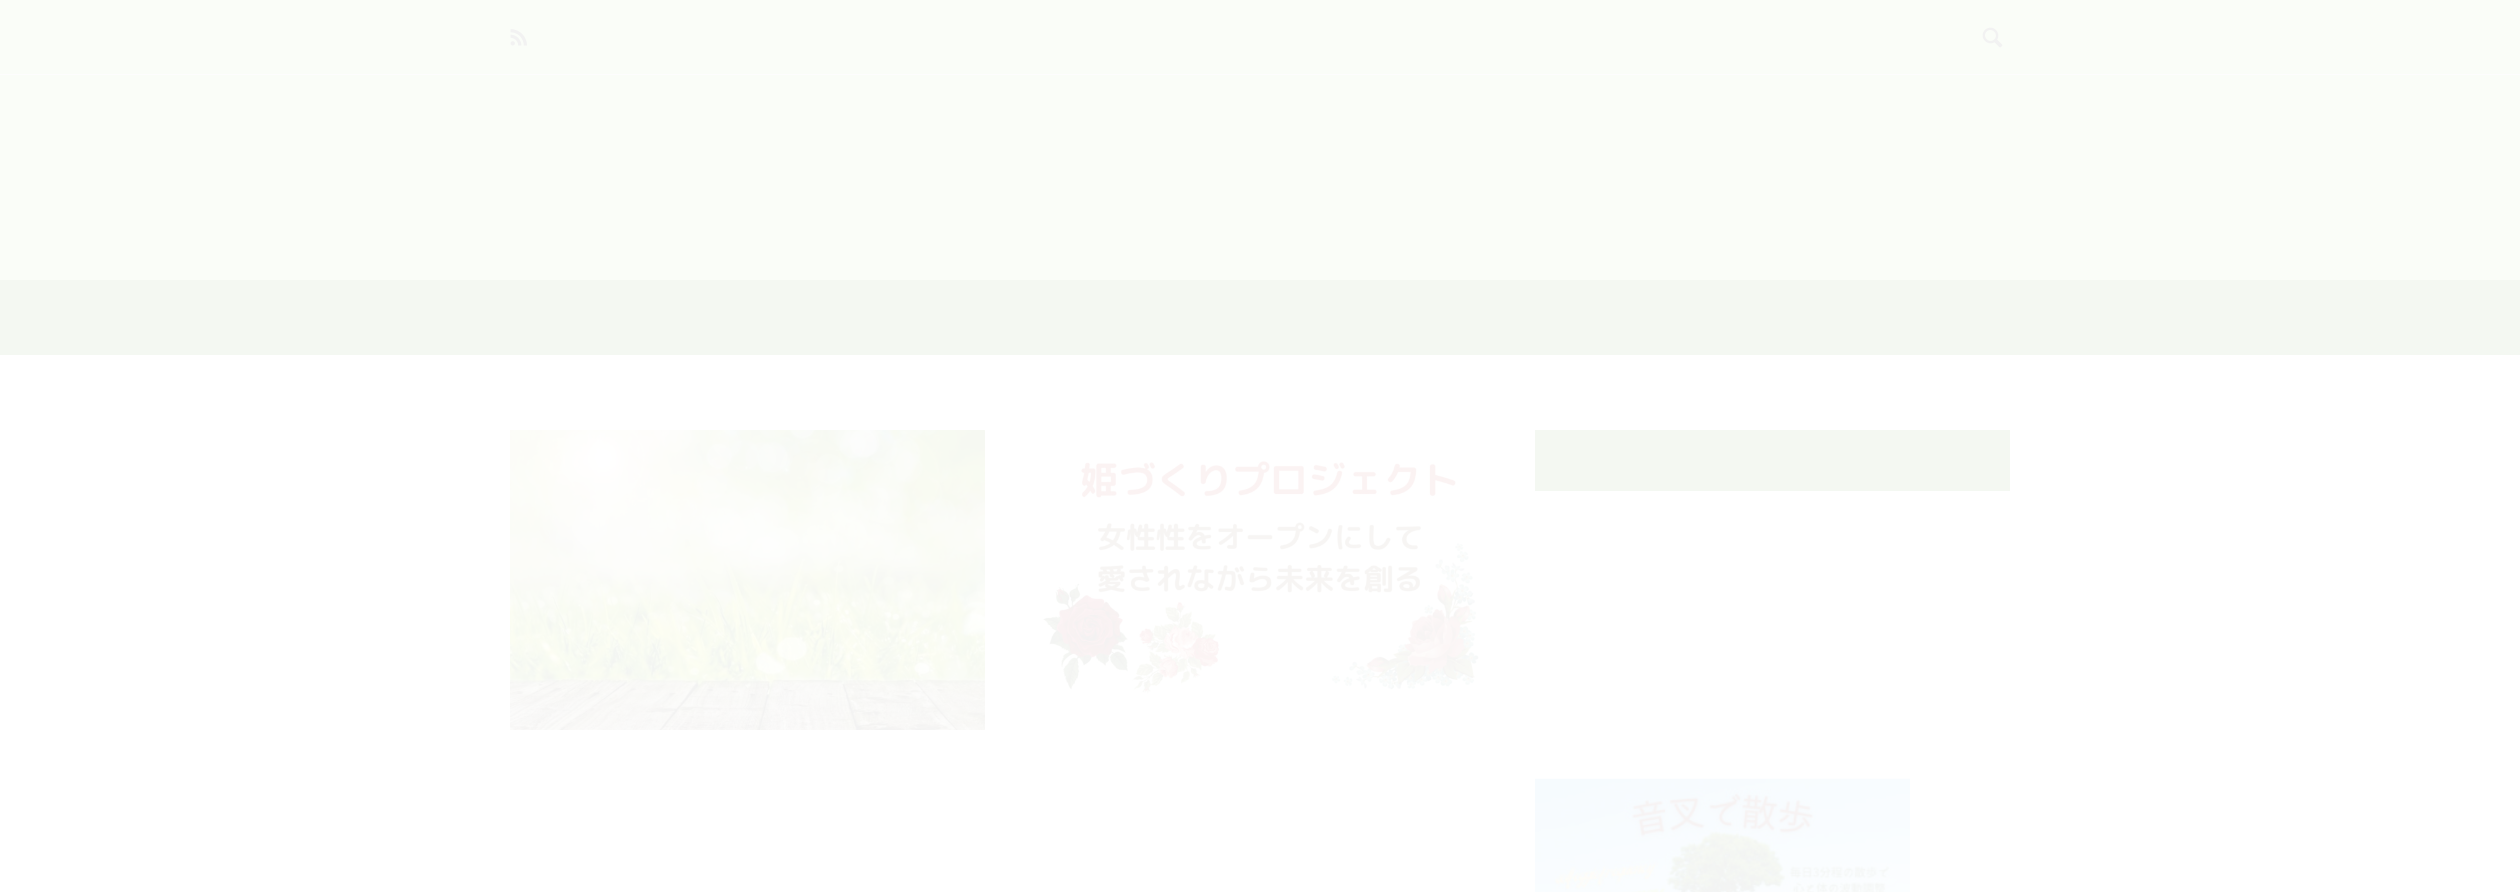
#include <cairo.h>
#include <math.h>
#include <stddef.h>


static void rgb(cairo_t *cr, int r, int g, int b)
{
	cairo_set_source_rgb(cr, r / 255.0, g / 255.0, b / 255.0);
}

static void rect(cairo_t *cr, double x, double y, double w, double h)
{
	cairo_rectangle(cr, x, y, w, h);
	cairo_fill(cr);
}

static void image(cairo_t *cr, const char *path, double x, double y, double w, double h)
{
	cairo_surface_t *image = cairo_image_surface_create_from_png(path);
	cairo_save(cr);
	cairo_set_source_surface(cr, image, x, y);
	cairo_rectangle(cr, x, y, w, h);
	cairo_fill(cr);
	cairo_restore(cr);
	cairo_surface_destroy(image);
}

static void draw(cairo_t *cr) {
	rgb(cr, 255, 255, 255);
	cairo_paint(cr);
	rgb(cr, 250, 253, 248);
	rect(cr, 0, 0, 2520, 280);
	rgb(cr, 253, 253, 253);
	rect(cr, 0, 74, 2520, 1);
	image(cr, "image0.png", 510, 29, 17, 17);
	image(cr, "image1.png", 1982, 27, 21, 21);
	rgb(cr, 244, 248, 242);
	rect(cr, 0, 280, 2520, 75);
	image(cr, "image2.png", 510, 430, 475, 300);
	image(cr, "image3.png", 1042, 460, 441, 234);
	rect(cr, 1535, 430, 475, 61);
	image(cr, "image4.png", 1535, 778, 375, 114);
}

int main(void) {
	cairo_surface_t *surface = cairo_image_surface_create(CAIRO_FORMAT_RGB24, 2520, 892);
	cairo_t *cr = cairo_create(surface);
	cairo_font_options_t *options = cairo_font_options_create();
	cairo_font_options_set_hint_metrics(options, CAIRO_HINT_METRICS_OFF);
	cairo_font_options_set_hint_style(options, CAIRO_HINT_STYLE_NONE);
	cairo_set_font_options(cr, options);
	cairo_set_miter_limit(cr, 4);
	draw(cr);
	cairo_surface_write_to_png(surface, "render.png");
	cairo_font_options_destroy(options);
	cairo_destroy(cr);
	cairo_surface_destroy(surface);
	return 0;
}
